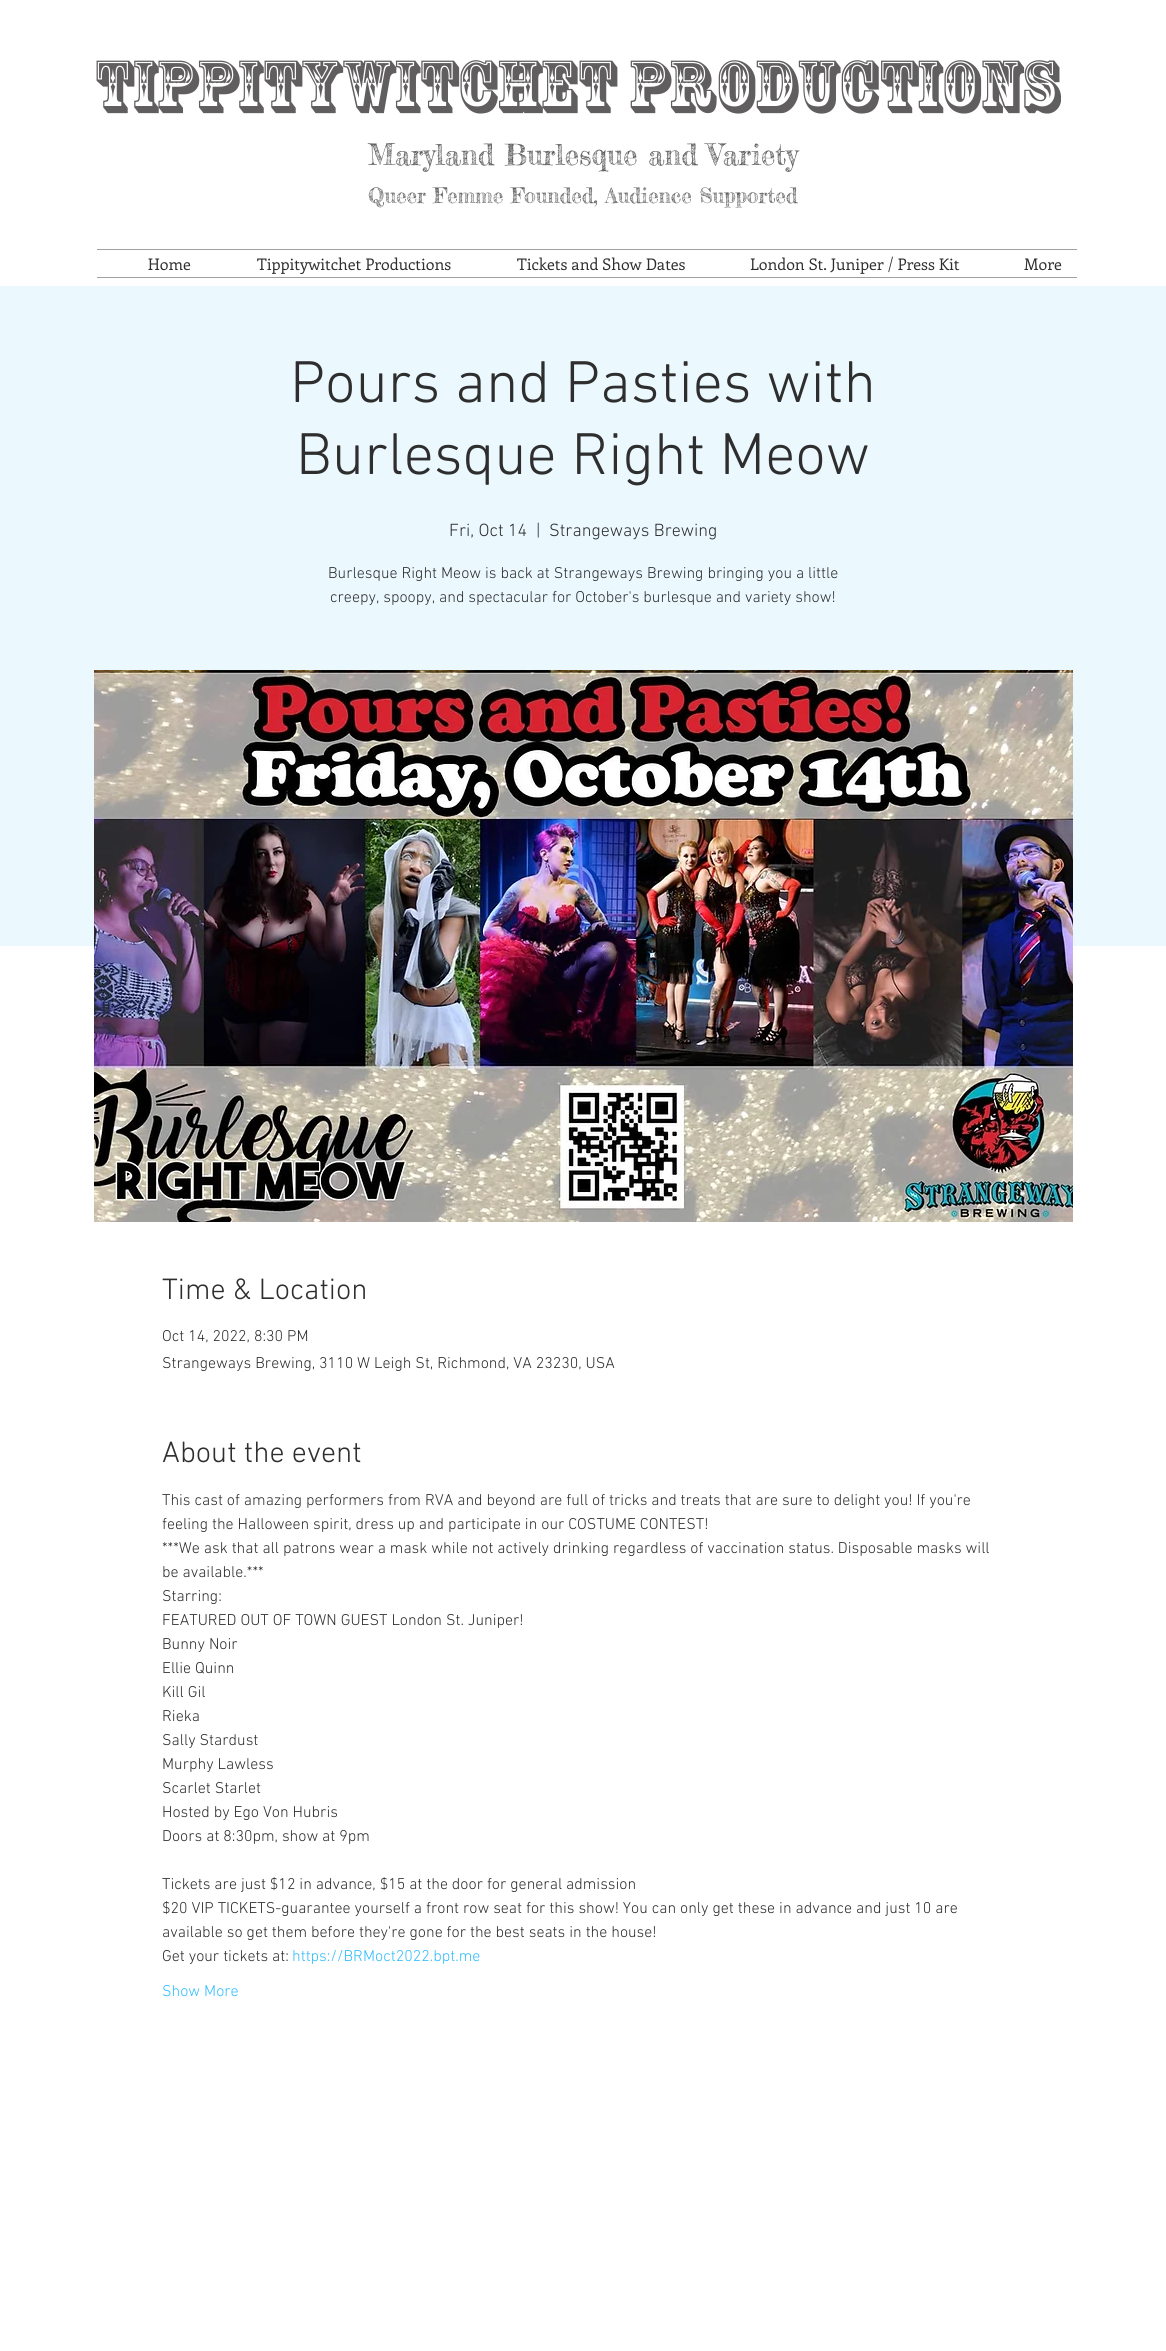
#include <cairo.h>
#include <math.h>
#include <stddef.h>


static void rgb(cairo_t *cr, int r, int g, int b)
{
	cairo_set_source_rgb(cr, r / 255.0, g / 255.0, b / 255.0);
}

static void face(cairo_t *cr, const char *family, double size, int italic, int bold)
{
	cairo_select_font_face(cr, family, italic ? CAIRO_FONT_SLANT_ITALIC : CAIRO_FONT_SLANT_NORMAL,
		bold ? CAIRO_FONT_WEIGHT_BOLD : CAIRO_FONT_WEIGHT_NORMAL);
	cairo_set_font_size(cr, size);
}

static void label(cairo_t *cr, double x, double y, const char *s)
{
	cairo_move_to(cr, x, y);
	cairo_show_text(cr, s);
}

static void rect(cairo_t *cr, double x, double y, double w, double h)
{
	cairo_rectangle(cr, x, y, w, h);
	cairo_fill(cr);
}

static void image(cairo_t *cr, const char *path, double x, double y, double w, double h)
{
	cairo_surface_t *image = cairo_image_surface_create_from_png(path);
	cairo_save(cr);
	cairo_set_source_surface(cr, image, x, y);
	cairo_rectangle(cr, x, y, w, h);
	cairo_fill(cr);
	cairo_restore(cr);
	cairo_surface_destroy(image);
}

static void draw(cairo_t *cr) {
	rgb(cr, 255, 255, 255);
	cairo_paint(cr);
	face(cr, "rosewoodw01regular", 70, 0, 0);
	rgb(cr, 96, 94, 94);
	label(cr, 93, 106, "Tippitywitchet Productions");
	face(cr, "Fredericka the Great", 29, 0, 0);
	label(cr, 368, 165, "Maryland Burlesque and Variety");
	face(cr, "Fredericka the Great", 21, 0, 0);
	label(cr, 368, 203, "Queer Femme Founded, Audience Supported");
	rgb(cr, 160, 160, 159);
	rect(cr, 97, 249, 980, 1);
	rect(cr, 97, 277, 980, 1);
	face(cr, "Enriqueta", 16, 0, 0);
	rgb(cr, 47, 46, 46);
	label(cr, 148, 270, "Home");
	label(cr, 257, 270, "Tippitywitchet Productions");
	label(cr, 517, 270, "Tickets and Show Dates");
	label(cr, 750, 270, "London St. Juniper / Press Kit");
	label(cr, 1024, 270, "More");
	rgb(cr, 235, 249, 255);
	rect(cr, 0, 286, 1166, 660);
	face(cr, "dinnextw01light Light", 60, 0, 0);
	rgb(cr, 47, 46, 46);
	label(cr, 290, 402, "Pours and Pasties with");
	label(cr, 296, 474, "Burlesque Right Meow");
	face(cr, "dinnextw01light Light", 18, 0, 0);
	label(cr, 449, 536, "Fri, Oct 14");
	label(cr, 536, 536, "|");
	label(cr, 549, 536, "Strangeways Brewing");
	face(cr, "dinnextw01light Light", 16, 0, 0);
	label(cr, 328, 578, "Burlesque Right Meow is back at Strangeways Brewing bringing you a little");
	label(cr, 330, 602, "creepy, spoopy, and spectacular for October's burlesque and variety show!");
	image(cr, "image0.png", 94, 670, 979, 552);
	face(cr, "dinnextw01light Light", 30, 0, 0);
	label(cr, 162, 1299, "Time & Location");
	face(cr, "dinnextw01light Light", 16, 0, 0);
	label(cr, 162, 1341, "Oct 14, 2022, 8:30 PM");
	label(cr, 162, 1368, "Strangeways Brewing, 3110 W Leigh St, Richmond, VA 23230, USA");
	face(cr, "dinnextw01light Light", 30, 0, 0);
	label(cr, 162, 1462, "About the event");
	face(cr, "dinnextw01light Light", 16, 0, 0);
	label(cr, 162, 1505, "This cast of amazing performers from RVA and beyond are full of tricks and treats that are sure to delight you! If you're");
	label(cr, 162, 1529, "feeling the Halloween spirit, dress up and participate in our COSTUME CONTEST!");
	label(cr, 162, 1553, "***We ask that all patrons wear a mask while not actively drinking regardless of vaccination status. Disposable masks will");
	label(cr, 162, 1577, "be available.***");
	label(cr, 162, 1601, "Starring:");
	label(cr, 162, 1625, "FEATURED OUT OF TOWN GUEST London St. Juniper!");
	label(cr, 162, 1649, "Bunny Noir");
	label(cr, 162, 1673, "Ellie Quinn");
	label(cr, 162, 1697, "Kill Gil");
	label(cr, 162, 1721, "Rieka");
	label(cr, 162, 1745, "Sally Stardust");
	label(cr, 162, 1769, "Murphy Lawless");
	label(cr, 162, 1793, "Scarlet Starlet");
	label(cr, 162, 1817, "Hosted by Ego Von Hubris");
	label(cr, 162, 1841, "Doors at 8:30pm, show at 9pm");
	label(cr, 162, 1889, "Tickets are just $12 in advance, $15 at the door for general admission");
	label(cr, 162, 1913, "$20 VIP TICKETS-guarantee yourself a front row seat for this show! You can only get these in advance and just 10 are");
	label(cr, 162, 1937, "available so get them before they're gone for the best seats in the house!");
	label(cr, 162, 1961, "Get your tickets at:");
	rgb(cr, 48, 189, 255);
	label(cr, 292, 1961, "https://BRMoct2022.bpt.me");
	label(cr, 162, 1996, "Show More");
}

int main(void) {
	cairo_surface_t *surface = cairo_image_surface_create(CAIRO_FORMAT_RGB24, 1166, 2351);
	cairo_t *cr = cairo_create(surface);
	cairo_font_options_t *options = cairo_font_options_create();
	cairo_font_options_set_hint_metrics(options, CAIRO_HINT_METRICS_OFF);
	cairo_font_options_set_hint_style(options, CAIRO_HINT_STYLE_NONE);
	cairo_set_font_options(cr, options);
	cairo_set_miter_limit(cr, 4);
	draw(cr);
	cairo_surface_write_to_png(surface, "render.png");
	cairo_font_options_destroy(options);
	cairo_destroy(cr);
	cairo_surface_destroy(surface);
	return 0;
}
